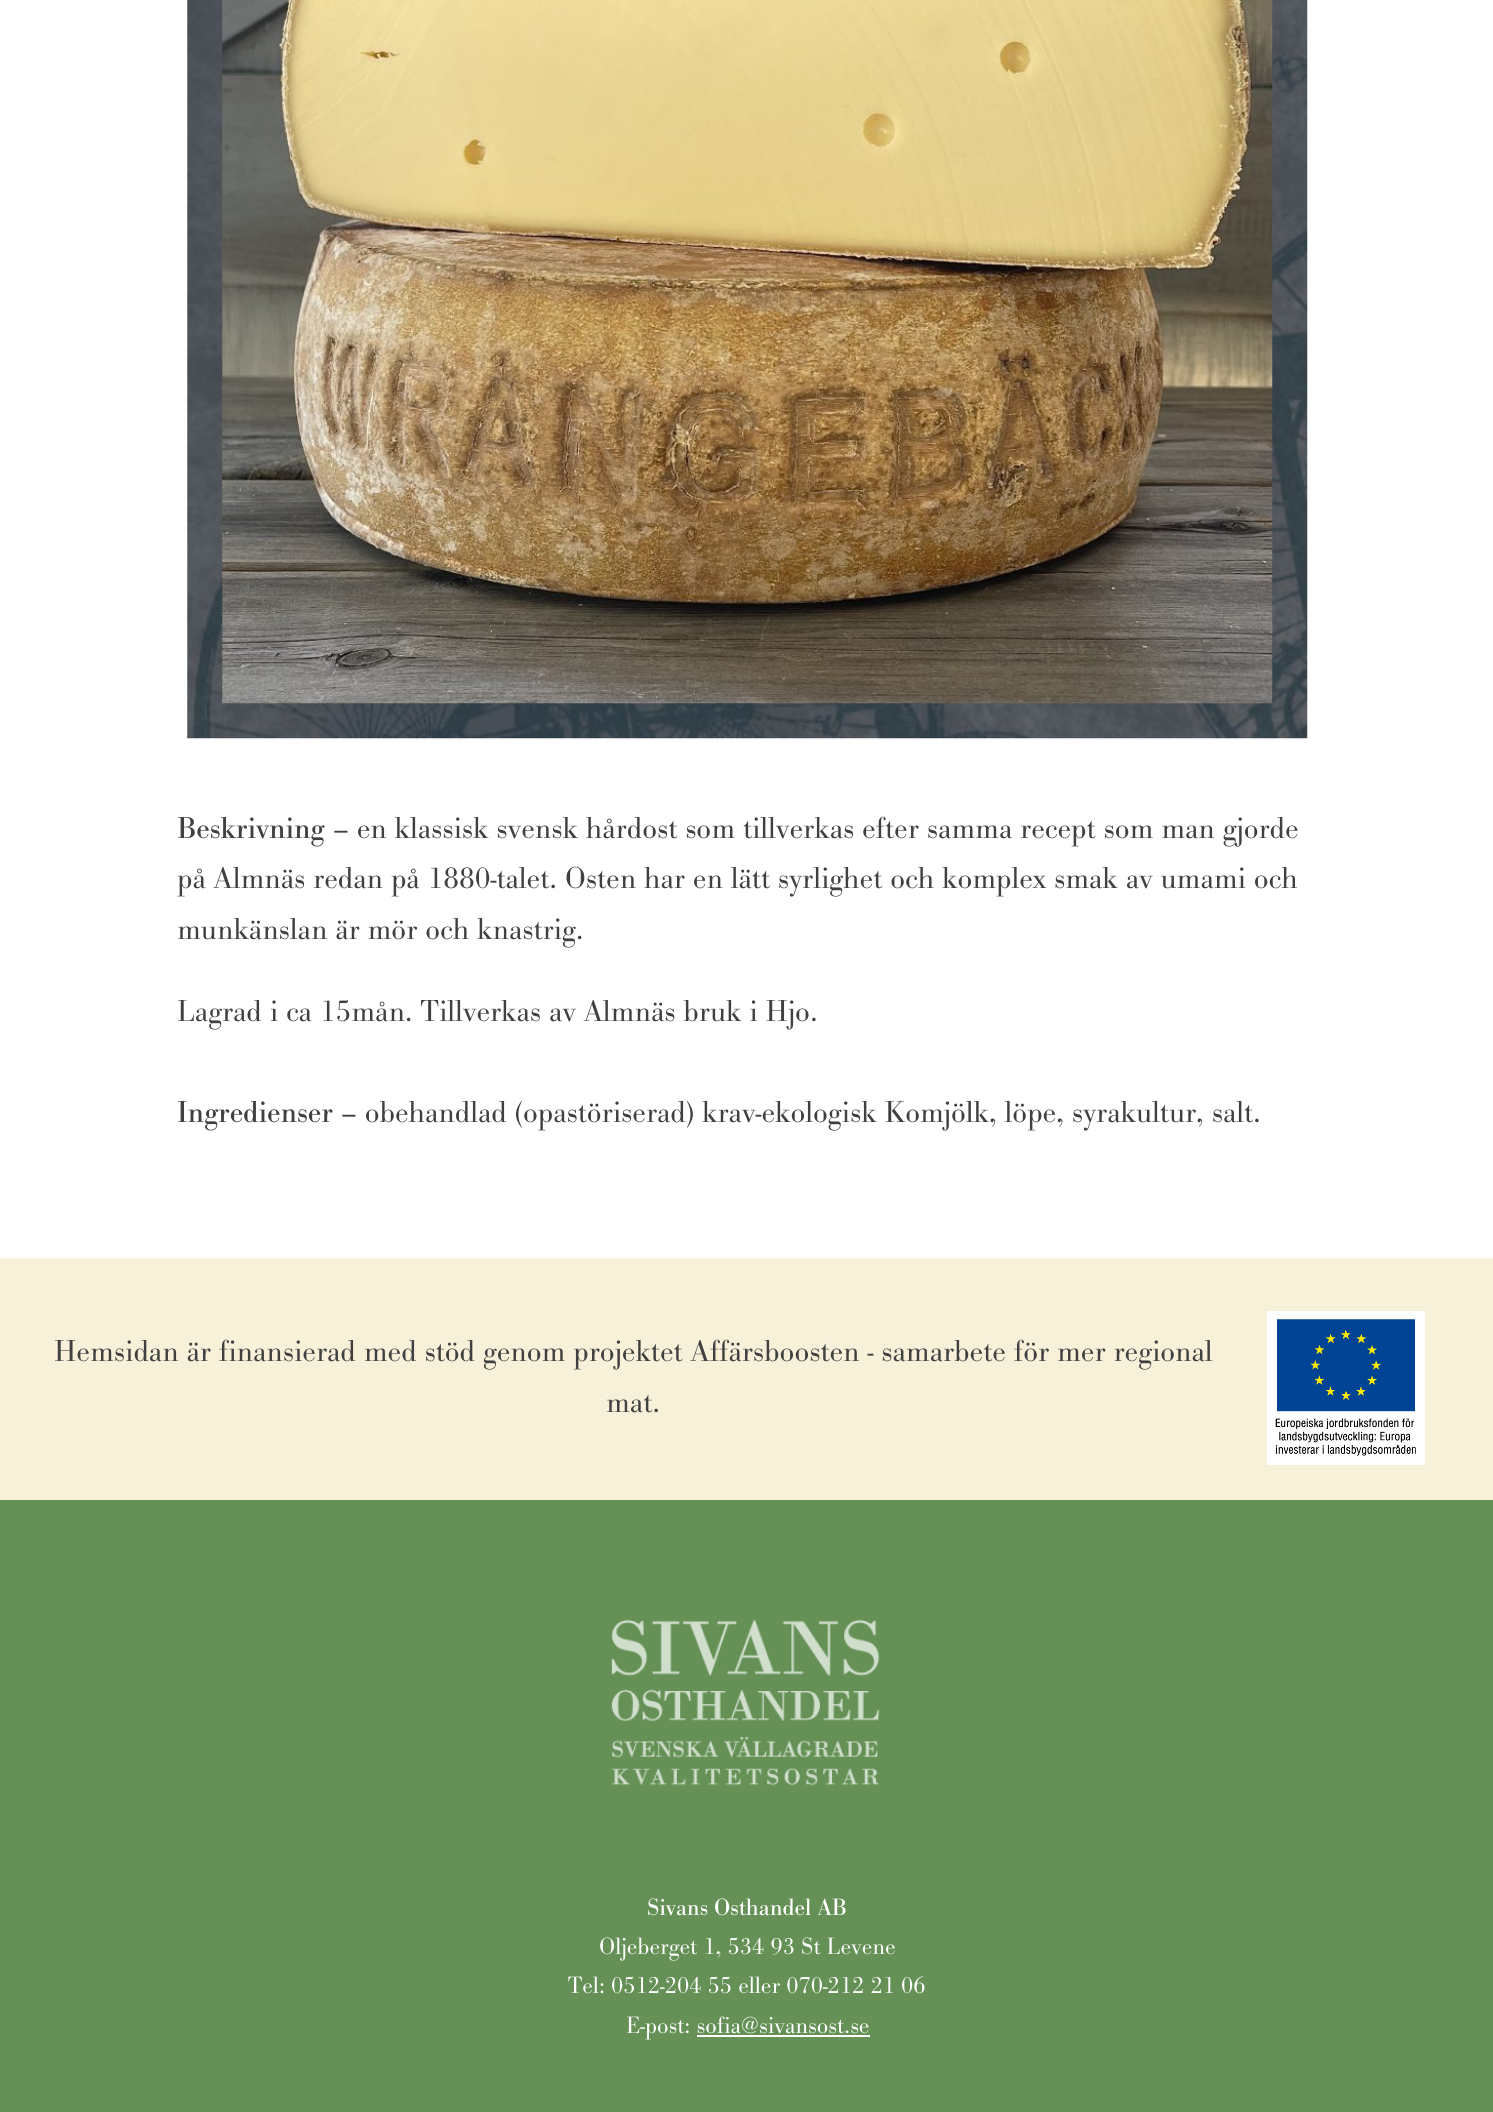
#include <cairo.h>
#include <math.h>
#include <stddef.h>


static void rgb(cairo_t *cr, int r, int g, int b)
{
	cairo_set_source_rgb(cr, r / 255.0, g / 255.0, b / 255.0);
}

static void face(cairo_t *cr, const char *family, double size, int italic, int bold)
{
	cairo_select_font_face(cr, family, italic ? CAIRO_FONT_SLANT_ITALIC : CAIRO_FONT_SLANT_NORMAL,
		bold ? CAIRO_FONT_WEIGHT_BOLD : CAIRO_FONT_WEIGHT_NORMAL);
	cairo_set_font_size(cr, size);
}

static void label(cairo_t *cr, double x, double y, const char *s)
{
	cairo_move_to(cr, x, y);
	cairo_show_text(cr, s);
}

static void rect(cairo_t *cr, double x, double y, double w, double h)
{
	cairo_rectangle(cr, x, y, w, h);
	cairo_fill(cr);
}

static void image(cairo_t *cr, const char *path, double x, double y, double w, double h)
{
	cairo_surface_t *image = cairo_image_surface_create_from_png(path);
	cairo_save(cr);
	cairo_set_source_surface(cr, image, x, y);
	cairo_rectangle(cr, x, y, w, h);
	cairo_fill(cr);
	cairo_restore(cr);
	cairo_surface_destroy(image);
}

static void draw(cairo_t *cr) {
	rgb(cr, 255, 255, 255);
	cairo_paint(cr);
	image(cr, "image0.png", 187, 0, 1121, 739);
	image(cr, "image1.png", 222, 0, 1051, 704);
	face(cr, "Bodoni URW", 31.5, 0, 0);
	rgb(cr, 64, 64, 64);
	label(cr, 177, 838, "Beskrivning");
	face(cr, "Bodoni URW Light", 31.5, 0, 0);
	label(cr, 333, 838, "– en klassisk svensk hårdost som tillverkas efter samma recept som man gjorde");
	label(cr, 177, 888, "på Almnäs redan på 1880-talet. Osten har en lätt syrlighet och komplex smak av umami och");
	label(cr, 177, 939, "munkänslan är mör och knastrig.");
	label(cr, 177, 1021, "Lagrad i ca 15mån. Tillverkas av Almnäs bruk i Hjo.");
	face(cr, "Bodoni URW", 31.5, 0, 0);
	label(cr, 177, 1122, "Ingredienser");
	face(cr, "Bodoni URW Light", 31.5, 0, 0);
	label(cr, 341, 1122, "– obehandlad (opastöriserad) krav-ekologisk Komjölk, löpe, syrakultur, salt.");
	rgb(cr, 247, 241, 217);
	rect(cr, 0, 1258, 1493, 242);
	rgb(cr, 64, 64, 64);
	label(cr, 54, 1361, "Hemsidan är finansierad med stöd genom projektet Affärsboosten - samarbete för mer regional");
	label(cr, 606, 1412, "mat.");
	rgb(cr, 255, 255, 255);
	rect(cr, 1267, 1311, 158, 154);
	image(cr, "image2.png", 1275, 1319, 141, 137);
	rgb(cr, 101, 145, 87);
	rect(cr, 0, 1500, 1493, 612);
	image(cr, "image3.png", 611, 1619, 269, 167);
	face(cr, "Bodoni URW", 24.5, 0, 0);
	rgb(cr, 255, 255, 255);
	label(cr, 647, 1915, "Sivans Osthandel AB");
	face(cr, "Bodoni URW Light", 24.5, 0, 0);
	label(cr, 599, 1954, "Oljeberget 1, 534 93 St Levene");
	label(cr, 568, 1993, "Tel: 0512-204 55 eller 070-212 21 06");
	label(cr, 626, 2033, "E-post: sofia@sivansost.se");
	rect(cr, 697, 2035, 173, 2);
}

int main(void) {
	cairo_surface_t *surface = cairo_image_surface_create(CAIRO_FORMAT_RGB24, 1493, 2112);
	cairo_t *cr = cairo_create(surface);
	cairo_font_options_t *options = cairo_font_options_create();
	cairo_font_options_set_hint_metrics(options, CAIRO_HINT_METRICS_OFF);
	cairo_font_options_set_hint_style(options, CAIRO_HINT_STYLE_NONE);
	cairo_set_font_options(cr, options);
	cairo_set_miter_limit(cr, 4);
	draw(cr);
	cairo_surface_write_to_png(surface, "render.png");
	cairo_font_options_destroy(options);
	cairo_destroy(cr);
	cairo_surface_destroy(surface);
	return 0;
}
